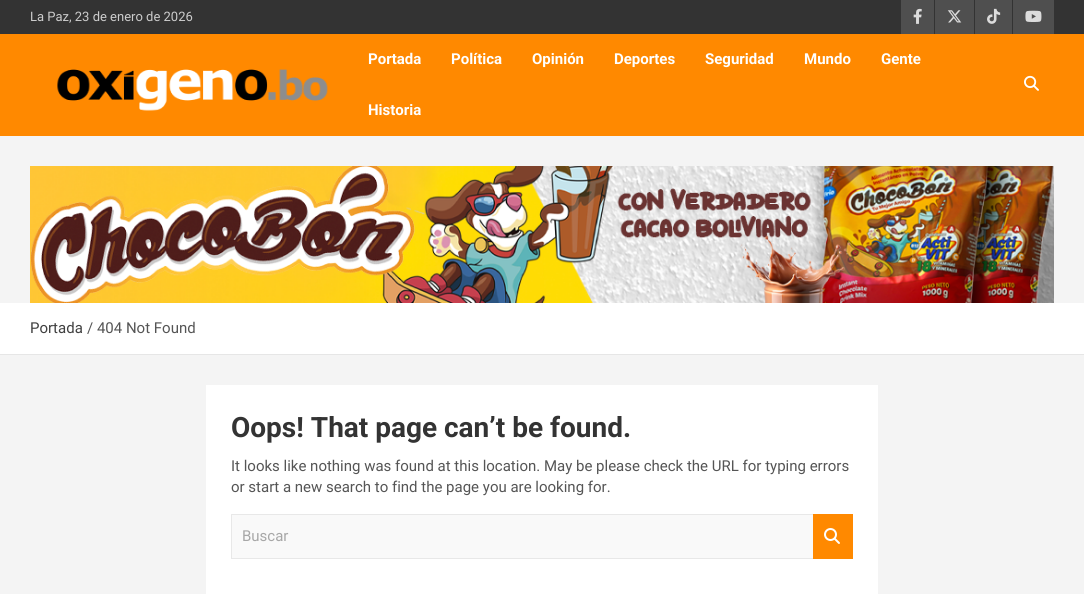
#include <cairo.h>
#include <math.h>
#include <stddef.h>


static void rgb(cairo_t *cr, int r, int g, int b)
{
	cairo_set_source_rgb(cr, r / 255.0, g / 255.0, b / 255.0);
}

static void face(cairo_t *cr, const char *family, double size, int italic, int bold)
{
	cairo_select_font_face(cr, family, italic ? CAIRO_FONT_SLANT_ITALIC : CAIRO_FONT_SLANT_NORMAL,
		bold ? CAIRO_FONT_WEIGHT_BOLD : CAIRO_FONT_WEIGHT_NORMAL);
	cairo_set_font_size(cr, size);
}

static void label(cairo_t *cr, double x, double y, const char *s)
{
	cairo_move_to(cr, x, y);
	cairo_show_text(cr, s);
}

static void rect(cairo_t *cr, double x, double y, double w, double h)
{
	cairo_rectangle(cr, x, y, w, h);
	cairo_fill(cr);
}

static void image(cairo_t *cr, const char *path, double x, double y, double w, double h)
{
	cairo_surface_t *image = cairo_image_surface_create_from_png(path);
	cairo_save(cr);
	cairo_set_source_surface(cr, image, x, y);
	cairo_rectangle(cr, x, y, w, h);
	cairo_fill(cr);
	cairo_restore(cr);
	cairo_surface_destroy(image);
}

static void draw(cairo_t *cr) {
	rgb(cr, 244, 244, 244);
	cairo_paint(cr);
	rgb(cr, 51, 51, 51);
	rect(cr, 0, 0, 1084, 34);
	face(cr, "Roboto", 13, 0, 0);
	rgb(cr, 204, 204, 204);
	label(cr, 30, 21, "La Paz, 23 de enero de 2026");
	rgb(cr, 79, 79, 79);
	rect(cr, 901, 0, 33, 34);
	image(cr, "image0.png", 913, 8, 9, 16);
	rect(cr, 935, 0, 39, 34);
	image(cr, "image1.png", 947, 10, 15, 13);
	rect(cr, 975, 0, 37, 34);
	image(cr, "image2.png", 987, 8, 14, 16);
	rect(cr, 1013, 0, 41, 34);
	image(cr, "image3.png", 1025, 10, 17, 12);
	rgb(cr, 255, 137, 0);
	rect(cr, 0, 34, 1084, 102);
	image(cr, "image4.png", 57, 69, 271, 42);
	face(cr, "Roboto", 15, 0, 1);
	rgb(cr, 255, 255, 255);
	label(cr, 368, 64, "Portada");
	label(cr, 451, 64, "Política");
	label(cr, 532, 64, "Opinión");
	label(cr, 614, 64, "Deportes");
	label(cr, 705, 64, "Seguridad");
	label(cr, 804, 64, "Mundo");
	label(cr, 881, 64, "Gente");
	label(cr, 368, 115, "Historia");
	image(cr, "image5.png", 1024, 75, 15, 16);
	image(cr, "image6.png", 30, 166, 1024, 137);
	rect(cr, 0, 303, 1084, 51);
	rgb(cr, 230, 230, 230);
	rect(cr, 0, 354, 1084, 1);
	face(cr, "Roboto", 15, 0, 0);
	rgb(cr, 64, 64, 64);
	label(cr, 30, 333, "Portada");
	rgb(cr, 85, 85, 85);
	label(cr, 87, 333, "/ 404 Not Found");
	rgb(cr, 255, 255, 255);
	rect(cr, 206, 385, 672, 209);
	face(cr, "Roboto", 28, 0, 1);
	rgb(cr, 51, 51, 51);
	label(cr, 231, 437, "Oops! That page can’t be found.");
	face(cr, "Roboto", 15, 0, 0);
	rgb(cr, 85, 85, 85);
	label(cr, 231, 471, "It looks like nothing was found at this location. May be please check the URL for typing errors");
	label(cr, 231, 492, "or start a new search to find the page you are looking for.");
	rgb(cr, 249, 249, 249);
	rect(cr, 232, 515, 581, 43);
	rgb(cr, 232, 232, 232);
	cairo_new_path(cr);
	cairo_move_to(cr, 231, 514);
	cairo_line_to(cr, 813, 514);
	cairo_line_to(cr, 813, 515);
	cairo_line_to(cr, 232, 515);
	cairo_close_path(cr);
	cairo_fill(cr);
	cairo_new_path(cr);
	cairo_move_to(cr, 813, 559);
	cairo_line_to(cr, 231, 559);
	cairo_line_to(cr, 232, 558);
	cairo_line_to(cr, 813, 558);
	cairo_close_path(cr);
	cairo_fill(cr);
	cairo_set_source_rgba(cr, 0, 0, 0, 0.09);
	cairo_new_path(cr);
	cairo_move_to(cr, 231, 559);
	cairo_line_to(cr, 231, 514);
	cairo_line_to(cr, 232, 515);
	cairo_line_to(cr, 232, 558);
	cairo_close_path(cr);
	cairo_fill(cr);
	rgb(cr, 167, 167, 167);
	label(cr, 242, 541, "Buscar");
	rgb(cr, 255, 137, 0);
	rect(cr, 813, 514, 40, 45);
	image(cr, "image7.png", 824, 528, 16, 16);
}

int main(void) {
	cairo_surface_t *surface = cairo_image_surface_create(CAIRO_FORMAT_RGB24, 1084, 594);
	cairo_t *cr = cairo_create(surface);
	cairo_font_options_t *options = cairo_font_options_create();
	cairo_font_options_set_hint_metrics(options, CAIRO_HINT_METRICS_OFF);
	cairo_font_options_set_hint_style(options, CAIRO_HINT_STYLE_NONE);
	cairo_set_font_options(cr, options);
	cairo_set_miter_limit(cr, 4);
	draw(cr);
	cairo_surface_write_to_png(surface, "render.png");
	cairo_font_options_destroy(options);
	cairo_destroy(cr);
	cairo_surface_destroy(surface);
	return 0;
}
